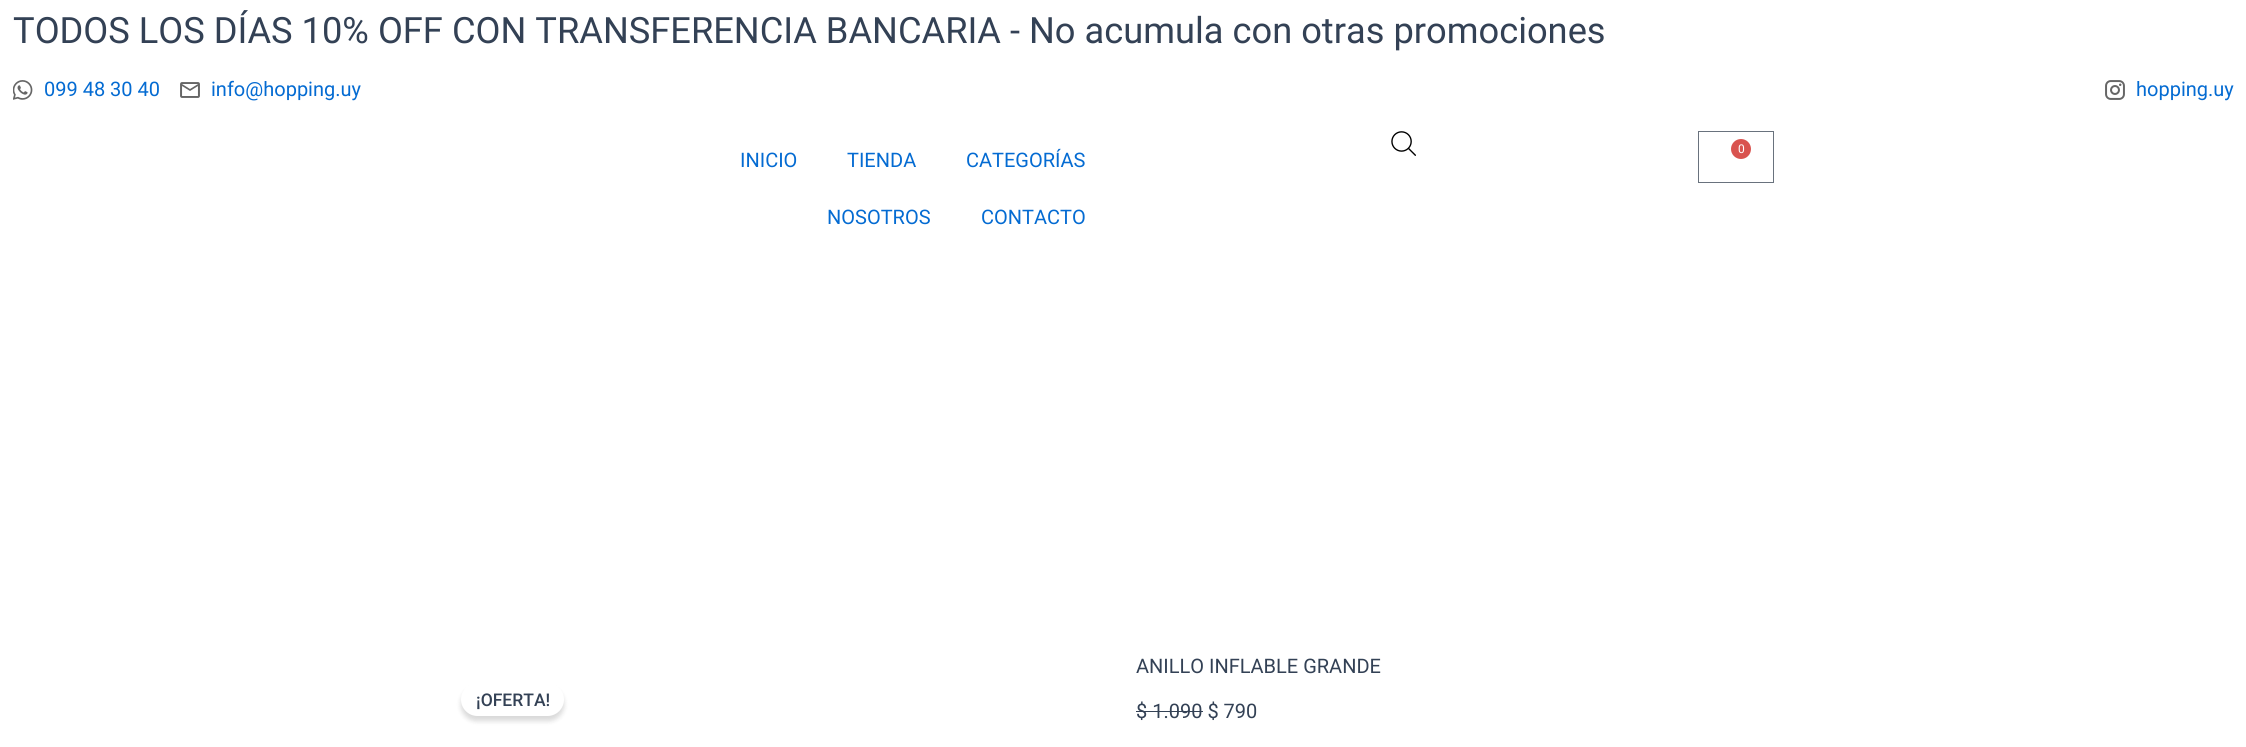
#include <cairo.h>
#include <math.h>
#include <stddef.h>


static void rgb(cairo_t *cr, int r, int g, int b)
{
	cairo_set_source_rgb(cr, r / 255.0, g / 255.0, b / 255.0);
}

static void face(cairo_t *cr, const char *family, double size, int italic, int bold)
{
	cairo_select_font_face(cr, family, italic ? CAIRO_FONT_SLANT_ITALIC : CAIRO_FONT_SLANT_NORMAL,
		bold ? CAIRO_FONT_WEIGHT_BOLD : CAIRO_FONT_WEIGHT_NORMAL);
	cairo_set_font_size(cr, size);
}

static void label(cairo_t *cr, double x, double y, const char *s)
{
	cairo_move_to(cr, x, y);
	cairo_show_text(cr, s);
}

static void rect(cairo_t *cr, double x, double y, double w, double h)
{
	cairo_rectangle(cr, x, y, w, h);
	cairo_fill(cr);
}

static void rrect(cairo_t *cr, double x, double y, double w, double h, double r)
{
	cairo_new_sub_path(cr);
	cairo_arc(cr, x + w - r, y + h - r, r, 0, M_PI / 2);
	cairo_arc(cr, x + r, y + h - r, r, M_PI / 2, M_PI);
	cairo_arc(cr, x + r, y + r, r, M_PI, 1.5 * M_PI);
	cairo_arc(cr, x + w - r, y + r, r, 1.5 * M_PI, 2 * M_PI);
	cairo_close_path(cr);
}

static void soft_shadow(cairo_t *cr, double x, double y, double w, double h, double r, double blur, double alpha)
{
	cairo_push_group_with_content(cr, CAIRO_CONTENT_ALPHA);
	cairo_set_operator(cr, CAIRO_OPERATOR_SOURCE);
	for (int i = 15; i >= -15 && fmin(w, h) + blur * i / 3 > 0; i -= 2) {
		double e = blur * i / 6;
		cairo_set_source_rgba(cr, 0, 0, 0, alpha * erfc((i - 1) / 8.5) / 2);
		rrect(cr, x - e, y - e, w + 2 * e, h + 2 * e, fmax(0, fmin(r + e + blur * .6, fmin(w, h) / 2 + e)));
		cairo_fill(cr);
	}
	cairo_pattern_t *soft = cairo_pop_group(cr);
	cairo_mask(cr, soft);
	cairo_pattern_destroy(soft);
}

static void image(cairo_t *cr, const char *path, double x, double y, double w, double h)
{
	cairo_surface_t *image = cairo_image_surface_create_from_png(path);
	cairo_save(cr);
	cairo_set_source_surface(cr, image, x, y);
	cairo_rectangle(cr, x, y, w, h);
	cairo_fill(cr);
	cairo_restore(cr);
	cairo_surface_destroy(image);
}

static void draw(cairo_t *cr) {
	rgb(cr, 255, 255, 255);
	cairo_paint(cr);
	face(cr, "Roboto", 36.25, 0, 0);
	rgb(cr, 51, 65, 85);
	label(cr, 13, 43, "TODOS LOS DÍAS 10% OFF CON TRANSFERENCIA BANCARIA - No acumula con otras promociones");
	image(cr, "image0.png", 13, 80, 20, 20);
	face(cr, "Roboto", 20, 0, 0);
	rgb(cr, 4, 107, 210);
	label(cr, 44, 96, "099 48 30 40");
	image(cr, "image1.png", 180, 82, 20, 16);
	label(cr, 211, 96, "info@hopping.uy");
	image(cr, "image2.png", 2105, 80, 20, 20);
	label(cr, 2136, 96, "hopping.uy");
	label(cr, 740, 167, "INICIO");
	label(cr, 847, 167, "TIENDA");
	label(cr, 966, 167, "CATEGORÍAS");
	label(cr, 827, 224, "NOSOTROS");
	label(cr, 981, 224, "CONTACTO");
	image(cr, "image3.png", 1391, 131, 25, 25);
	cairo_rectangle(cr, 1698.5, 131.5, 75, 51);
	rgb(cr, 105, 114, 125);
	cairo_set_line_width(cr, 1);
	cairo_stroke(cr);
	rgb(cr, 217, 83, 79);
	cairo_arc(cr, 1741, 149, 10, 0, 2 * M_PI);
	cairo_fill(cr);
	face(cr, "Roboto", 12, 0, 0);
	rgb(cr, 255, 255, 255);
	label(cr, 1738, 153, "0");
	rgb(cr, 0, 0, 0);
	soft_shadow(cr, 461, 688, 103, 33, 16.5, 2.5, 0.15);
	rgb(cr, 255, 255, 255);
	rrect(cr, 461, 683, 103, 33, 16.5);
	cairo_fill(cr);
	face(cr, "Roboto Medium", 17.5, 0, 0);
	rgb(cr, 51, 65, 85);
	label(cr, 476, 706, "¡OFERTA!");
	face(cr, "Roboto", 20, 0, 0);
	label(cr, 1136, 673, "ANILLO INFLABLE GRANDE");
	label(cr, 1136, 718, "$ 1.090 $ 790");
	rect(cr, 1136, 711, 67, 1);
}

int main(void) {
	cairo_surface_t *surface = cairo_image_surface_create(CAIRO_FORMAT_RGB24, 2246, 747);
	cairo_t *cr = cairo_create(surface);
	cairo_font_options_t *options = cairo_font_options_create();
	cairo_font_options_set_hint_metrics(options, CAIRO_HINT_METRICS_OFF);
	cairo_font_options_set_hint_style(options, CAIRO_HINT_STYLE_NONE);
	cairo_set_font_options(cr, options);
	cairo_set_miter_limit(cr, 4);
	draw(cr);
	cairo_surface_write_to_png(surface, "render.png");
	cairo_font_options_destroy(options);
	cairo_destroy(cr);
	cairo_surface_destroy(surface);
	return 0;
}
